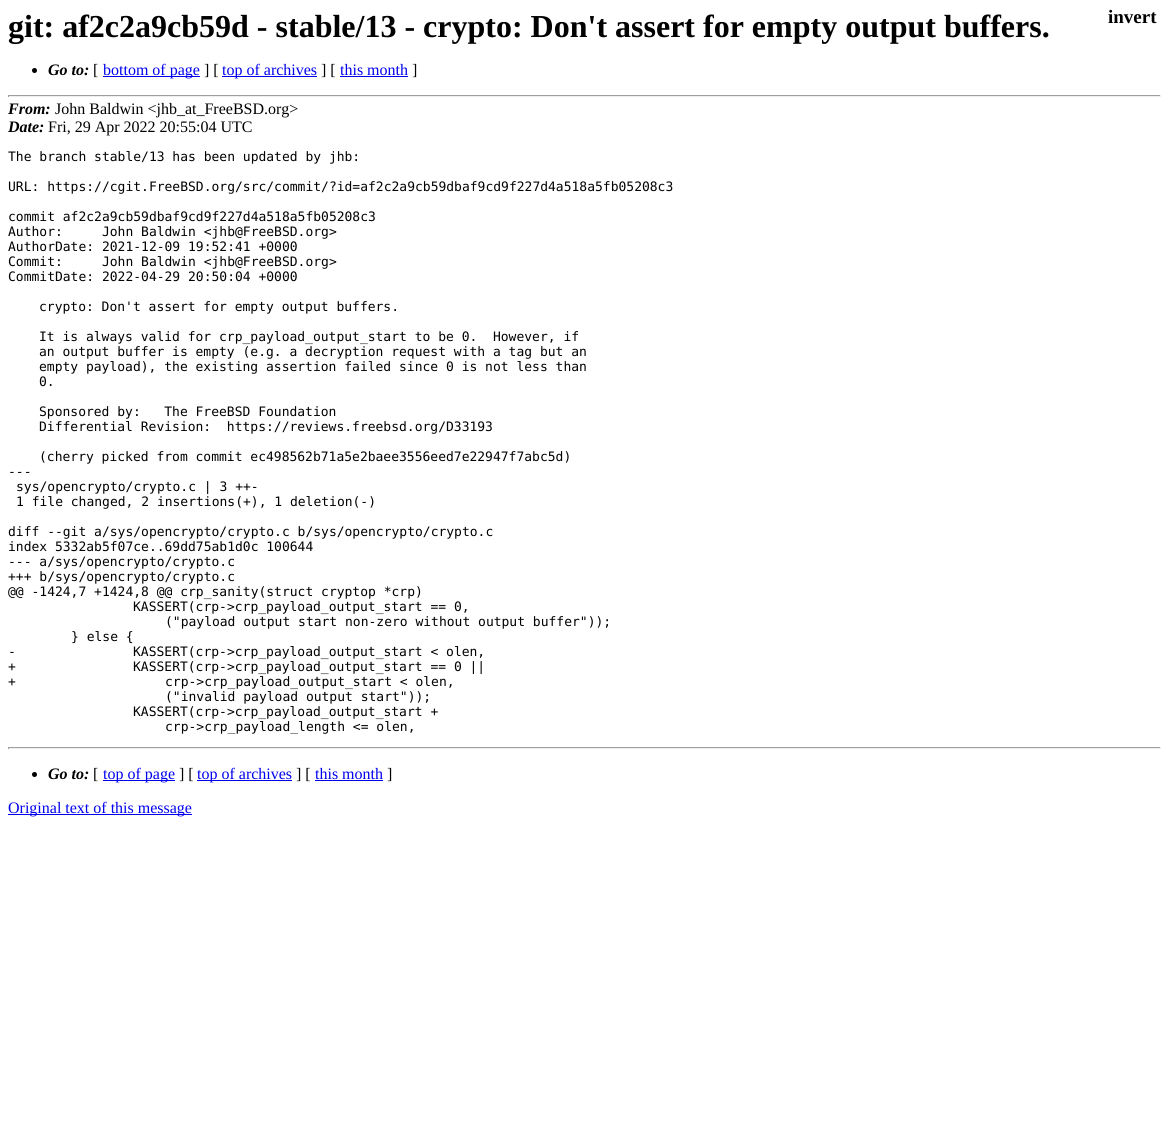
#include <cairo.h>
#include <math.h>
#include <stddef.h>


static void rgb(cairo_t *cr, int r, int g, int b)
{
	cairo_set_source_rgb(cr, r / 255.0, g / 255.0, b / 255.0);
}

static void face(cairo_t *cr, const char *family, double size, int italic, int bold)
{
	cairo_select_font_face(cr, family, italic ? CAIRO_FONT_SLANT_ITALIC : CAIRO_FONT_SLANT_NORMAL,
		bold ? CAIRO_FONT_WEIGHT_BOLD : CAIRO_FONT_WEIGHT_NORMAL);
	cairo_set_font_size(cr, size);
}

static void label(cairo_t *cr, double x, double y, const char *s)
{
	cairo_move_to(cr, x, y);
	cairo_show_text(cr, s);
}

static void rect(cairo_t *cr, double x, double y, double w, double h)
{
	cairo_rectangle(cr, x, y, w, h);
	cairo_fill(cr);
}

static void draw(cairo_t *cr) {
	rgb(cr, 255, 255, 255);
	cairo_paint(cr);
	face(cr, "Liberation Serif", 32, 0, 1);
	rgb(cr, 0, 0, 0);
	label(cr, 8, 37, "git: af2c2a9cb59d - stable/13 - crypto: Don't assert for empty output buffers.");
	cairo_new_path(cr);
	cairo_arc(cr, 34.5, 70.5, 2.5, 0, 2 * M_PI);
	cairo_fill(cr);
	face(cr, "Liberation Serif", 16, 1, 1);
	label(cr, 48, 75, "Go to:");
	face(cr, "Liberation Serif", 16, 0, 0);
	label(cr, 93, 75, "[");
	rgb(cr, 0, 0, 238);
	rect(cr, 103, 76, 97, 1);
	label(cr, 103, 75, "bottom of page");
	rgb(cr, 0, 0, 0);
	label(cr, 204, 75, "] [");
	rgb(cr, 0, 0, 238);
	rect(cr, 222, 76, 95, 1);
	label(cr, 222, 75, "top of archives");
	rgb(cr, 0, 0, 0);
	label(cr, 321, 75, "] [");
	rgb(cr, 0, 0, 238);
	label(cr, 340, 75, "this month");
	rect(cr, 340, 76, 68, 1);
	rgb(cr, 0, 0, 0);
	label(cr, 412, 75, "]");
	rgb(cr, 159, 159, 159);
	rect(cr, 8, 95, 1153, 1);
	rgb(cr, 238, 238, 238);
	rect(cr, 1160, 95, 1, 2);
	rect(cr, 8, 96, 1153, 1);
	rgb(cr, 159, 159, 159);
	rect(cr, 8, 95, 1, 2);
	face(cr, "Liberation Serif", 19, 0, 1);
	rgb(cr, 0, 0, 0);
	label(cr, 1108, 23, "invert");
	face(cr, "Liberation Serif", 16, 1, 1);
	label(cr, 8, 114, "From:");
	face(cr, "Liberation Serif", 16, 0, 0);
	label(cr, 55, 114, "John Baldwin <jhb_at_FreeBSD.org>");
	face(cr, "Liberation Serif", 16, 1, 1);
	label(cr, 8, 132, "Date:");
	face(cr, "Liberation Serif", 16, 0, 0);
	label(cr, 48, 132, "Fri, 29 Apr 2022 20:55:04 UTC");
	face(cr, "DejaVu Sans Mono", 13, 0, 0);
	label(cr, 8, 161, "The branch stable/13 has been updated by jhb:");
	label(cr, 8, 191, "URL: https://cgit.FreeBSD.org/src/commit/?id=af2c2a9cb59dbaf9cd9f227d4a518a5fb05208c3");
	label(cr, 8, 221, "commit af2c2a9cb59dbaf9cd9f227d4a518a5fb05208c3");
	label(cr, 8, 236, "Author:     John Baldwin <jhb@FreeBSD.org>");
	label(cr, 8, 251, "AuthorDate: 2021-12-09 19:52:41 +0000");
	label(cr, 8, 266, "Commit:     John Baldwin <jhb@FreeBSD.org>");
	label(cr, 8, 281, "CommitDate: 2022-04-29 20:50:04 +0000");
	label(cr, 39, 311, "crypto: Don't assert for empty output buffers.");
	label(cr, 39, 341, "It is always valid for crp_payload_output_start to be 0.  However, if");
	label(cr, 39, 356, "an output buffer is empty (e.g. a decryption request with a tag but an");
	label(cr, 39, 371, "empty payload), the existing assertion failed since 0 is not less than");
	label(cr, 39, 386, "0.");
	label(cr, 39, 416, "Sponsored by:   The FreeBSD Foundation");
	label(cr, 39, 431, "Differential Revision:  https://reviews.freebsd.org/D33193");
	label(cr, 39, 461, "(cherry picked from commit ec498562b71a5e2baee3556eed7e22947f7abc5d)");
	label(cr, 8, 476, "---");
	label(cr, 16, 491, "sys/opencrypto/crypto.c | 3 ++-");
	label(cr, 16, 506, "1 file changed, 2 insertions(+), 1 deletion(-)");
	label(cr, 8, 536, "diff --git a/sys/opencrypto/crypto.c b/sys/opencrypto/crypto.c");
	label(cr, 8, 551, "index 5332ab5f07ce..69dd75ab1d0c 100644");
	label(cr, 8, 566, "--- a/sys/opencrypto/crypto.c");
	label(cr, 8, 581, "+++ b/sys/opencrypto/crypto.c");
	label(cr, 8, 596, "@@ -1424,7 +1424,8 @@ crp_sanity(struct cryptop *crp)");
	label(cr, 133, 611, "KASSERT(crp->crp_payload_output_start == 0,");
	label(cr, 165, 626, "(\"payload output start non-zero without output buffer\"));");
	label(cr, 71, 641, "} else {");
	label(cr, 8, 656, "-");
	label(cr, 133, 656, "KASSERT(crp->crp_payload_output_start < olen,");
	label(cr, 8, 671, "+");
	label(cr, 133, 671, "KASSERT(crp->crp_payload_output_start == 0 ||");
	label(cr, 8, 686, "+");
	label(cr, 165, 686, "crp->crp_payload_output_start < olen,");
	label(cr, 165, 701, "(\"invalid payload output start\"));");
	label(cr, 133, 716, "KASSERT(crp->crp_payload_output_start +");
	cairo_save(cr);
	cairo_rectangle(cr, 8, 149, 1153, 585);
	cairo_clip(cr);
	label(cr, 165, 731, "crp->crp_payload_length <= olen,");
	cairo_restore(cr);
	rgb(cr, 159, 159, 159);
	rect(cr, 8, 747, 1153, 1);
	rgb(cr, 238, 238, 238);
	rect(cr, 1160, 747, 1, 2);
	rect(cr, 8, 748, 1153, 1);
	rgb(cr, 159, 159, 159);
	rect(cr, 8, 747, 1, 2);
	rgb(cr, 0, 0, 0);
	cairo_new_path(cr);
	cairo_arc(cr, 34.5, 774.5, 2.5, 0, 2 * M_PI);
	cairo_fill(cr);
	face(cr, "Liberation Serif", 16, 1, 1);
	label(cr, 48, 779, "Go to:");
	face(cr, "Liberation Serif", 16, 0, 0);
	label(cr, 93, 779, "[");
	rgb(cr, 0, 0, 238);
	rect(cr, 103, 780, 72, 1);
	label(cr, 103, 779, "top of page");
	rgb(cr, 0, 0, 0);
	label(cr, 179, 779, "] [");
	rgb(cr, 0, 0, 238);
	rect(cr, 197, 780, 95, 1);
	label(cr, 197, 779, "top of archives");
	rgb(cr, 0, 0, 0);
	label(cr, 296, 779, "] [");
	rgb(cr, 0, 0, 238);
	label(cr, 315, 779, "this month");
	rect(cr, 315, 780, 68, 1);
	rgb(cr, 0, 0, 0);
	label(cr, 387, 779, "]");
	rgb(cr, 0, 0, 238);
	rect(cr, 8, 814, 184, 1);
	label(cr, 8, 813, "Original text of this message");
}

int main(void) {
	cairo_surface_t *surface = cairo_image_surface_create(CAIRO_FORMAT_RGB24, 1169, 1123);
	cairo_t *cr = cairo_create(surface);
	cairo_font_options_t *options = cairo_font_options_create();
	cairo_font_options_set_hint_metrics(options, CAIRO_HINT_METRICS_OFF);
	cairo_font_options_set_hint_style(options, CAIRO_HINT_STYLE_NONE);
	cairo_set_font_options(cr, options);
	cairo_set_miter_limit(cr, 4);
	draw(cr);
	cairo_surface_write_to_png(surface, "render.png");
	cairo_font_options_destroy(options);
	cairo_destroy(cr);
	cairo_surface_destroy(surface);
	return 0;
}
